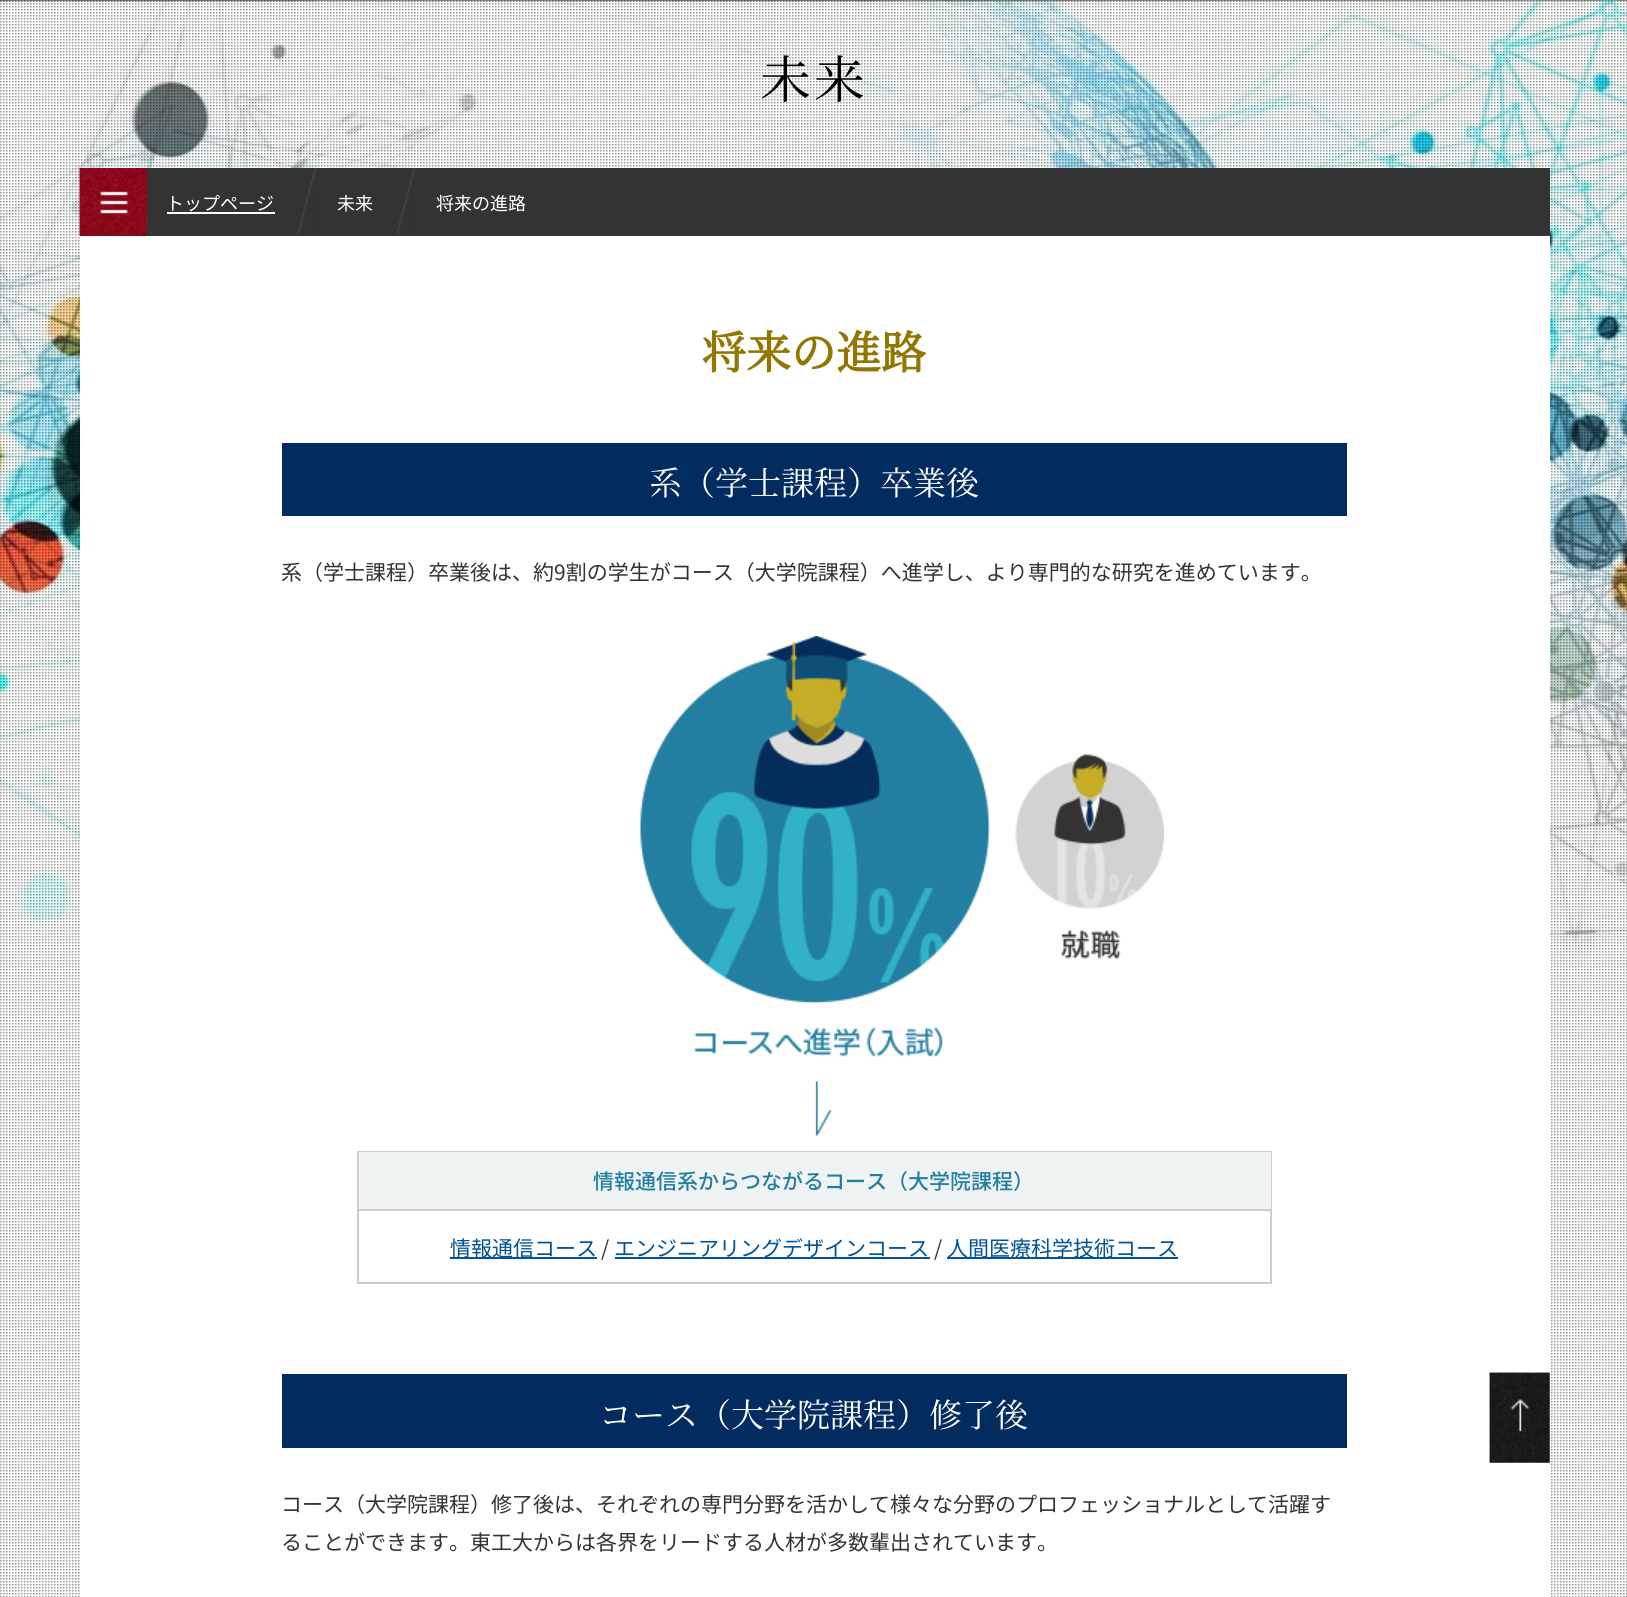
#include <cairo.h>
#include <math.h>
#include <stddef.h>


static void rgb(cairo_t *cr, int r, int g, int b)
{
	cairo_set_source_rgb(cr, r / 255.0, g / 255.0, b / 255.0);
}

static void face(cairo_t *cr, const char *family, double size, int italic, int bold)
{
	cairo_select_font_face(cr, family, italic ? CAIRO_FONT_SLANT_ITALIC : CAIRO_FONT_SLANT_NORMAL,
		bold ? CAIRO_FONT_WEIGHT_BOLD : CAIRO_FONT_WEIGHT_NORMAL);
	cairo_set_font_size(cr, size);
}

static void label(cairo_t *cr, double x, double y, const char *s)
{
	cairo_move_to(cr, x, y);
	cairo_show_text(cr, s);
}

static void tracked(cairo_t *cr, double x, double y, const char *s, double letter, double word)
{
	cairo_move_to(cr, x, y);
	while (*s) {
		char ch[5] = {0};
		int n = 0;
		do ch[n++] = *s++; while ((*s & 0xC0) == 0x80);
		cairo_show_text(cr, ch);
		cairo_rel_move_to(cr, letter + word * (*ch == ' '), 0);
	}
}

static void rect(cairo_t *cr, double x, double y, double w, double h)
{
	cairo_rectangle(cr, x, y, w, h);
	cairo_fill(cr);
}

static void image(cairo_t *cr, const char *path, double x, double y, double w, double h)
{
	cairo_surface_t *image = cairo_image_surface_create_from_png(path);
	cairo_save(cr);
	cairo_set_source_surface(cr, image, x, y);
	cairo_rectangle(cr, x, y, w, h);
	cairo_fill(cr);
	cairo_restore(cr);
	cairo_surface_destroy(image);
}

static void draw(cairo_t *cr) {
	rgb(cr, 255, 255, 255);
	cairo_paint(cr);
	image(cr, "image0.png", 0, 0, 1627, 1597);
	image(cr, "image1.png", 0, 0, 1627, 1597);
	rgb(cr, 51, 51, 51);
	rect(cr, 80, 168, 1470, 68);
	image(cr, "image2.png", 79, 168, 68, 68);
	cairo_set_source_rgba(cr, 0, 0, 0, 0.15);
	rect(cr, 80, 168, 67, 68);
	image(cr, "image3.png", 100, 191, 28, 23);
	face(cr, "Noto Serif JP ExtraLight", 51, 0, 0);
	rgb(cr, 0, 0, 0);
	tracked(cr, 760, 98, "未来", 3, 0);
	rgb(cr, 255, 255, 255);
	rect(cr, 80, 236, 1470, 1361);
	face(cr, "Noto Serif JP", 45, 0, 1);
	rgb(cr, 147, 118, 0);
	label(cr, 701, 369, "将来の進路");
	rgb(cr, 2, 43, 95);
	rect(cr, 282, 443, 1065, 73);
	face(cr, "Noto Serif JP ExtraLight", 33, 0, 0);
	rgb(cr, 255, 255, 255);
	label(cr, 649, 495, "系（学士課程）卒業後");
	face(cr, "Noto Sans JP", 21, 0, 0);
	rgb(cr, 51, 51, 51);
	label(cr, 281, 580, "系（学士課程）卒業後は、約9割の学生がコース（大学院課程）へ進学し、より専門的な研究を進めています。");
	image(cr, "image4.png", 640, 636, 524, 500);
	cairo_rectangle(cr, 358, 1152, 913, 131);
	rgb(cr, 204, 204, 204);
	cairo_stroke(cr);
	rgb(cr, 239, 243, 244);
	rect(cr, 359, 1152, 912, 57);
	rgb(cr, 204, 204, 204);
	rect(cr, 359, 1209, 912, 2);
	face(cr, "Noto Sans JP Medium", 21, 0, 0);
	rgb(cr, 35, 127, 161);
	label(cr, 593, 1189, "情報通信系からつながるコース（大学院課程）");
	rgb(cr, 0, 83, 150);
	rect(cr, 450, 1257, 147, 2);
	face(cr, "Noto Sans JP", 21, 0, 0);
	label(cr, 450, 1256, "情報通信コース");
	rgb(cr, 51, 51, 51);
	label(cr, 601, 1256, "/");
	rgb(cr, 0, 83, 150);
	rect(cr, 615, 1257, 315, 2);
	label(cr, 614, 1256, "エンジニアリングデザインコース");
	rgb(cr, 51, 51, 51);
	label(cr, 934, 1256, "/");
	rgb(cr, 0, 83, 150);
	rect(cr, 947, 1257, 231, 2);
	label(cr, 947, 1256, "人間医療科学技術コース");
	rgb(cr, 2, 43, 95);
	rect(cr, 282, 1374, 1065, 74);
	face(cr, "Noto Serif JP ExtraLight", 33, 0, 0);
	rgb(cr, 255, 255, 255);
	label(cr, 599, 1427, "コース（大学院課程）修了後");
	face(cr, "Noto Sans JP", 21, 0, 0);
	rgb(cr, 51, 51, 51);
	label(cr, 281, 1512, "コース（大学院課程）修了後は、それぞれの専門分野を活かして様々な分野のプロフェッショナルとして活躍す");
	label(cr, 281, 1550, "ることができます。東工大からは各界をリードする人材が多数輩出されています。");
	image(cr, "image5.png", 1489, 1372, 61, 91);
	cairo_set_source_rgba(cr, 0, 0, 0, 0.5);
	rect(cr, 1490, 1373, 60, 90);
	image(cr, "image6.png", 1510, 1399, 19, 33);
	face(cr, "Noto Sans JP", 18, 0, 0);
	rgb(cr, 255, 255, 255);
	label(cr, 166, 210, "トップページ");
	rect(cr, 167, 212, 108, 2);
	image(cr, "image7.png", 297, 168, 20, 67);
	label(cr, 337, 210, "未来");
	image(cr, "image7.png", 396, 168, 20, 67);
	label(cr, 436, 210, "将来の進路");
}

int main(void) {
	cairo_surface_t *surface = cairo_image_surface_create(CAIRO_FORMAT_RGB24, 1627, 1597);
	cairo_t *cr = cairo_create(surface);
	cairo_font_options_t *options = cairo_font_options_create();
	cairo_font_options_set_hint_metrics(options, CAIRO_HINT_METRICS_OFF);
	cairo_font_options_set_hint_style(options, CAIRO_HINT_STYLE_NONE);
	cairo_set_font_options(cr, options);
	cairo_set_miter_limit(cr, 4);
	draw(cr);
	cairo_surface_write_to_png(surface, "render.png");
	cairo_font_options_destroy(options);
	cairo_destroy(cr);
	cairo_surface_destroy(surface);
	return 0;
}
